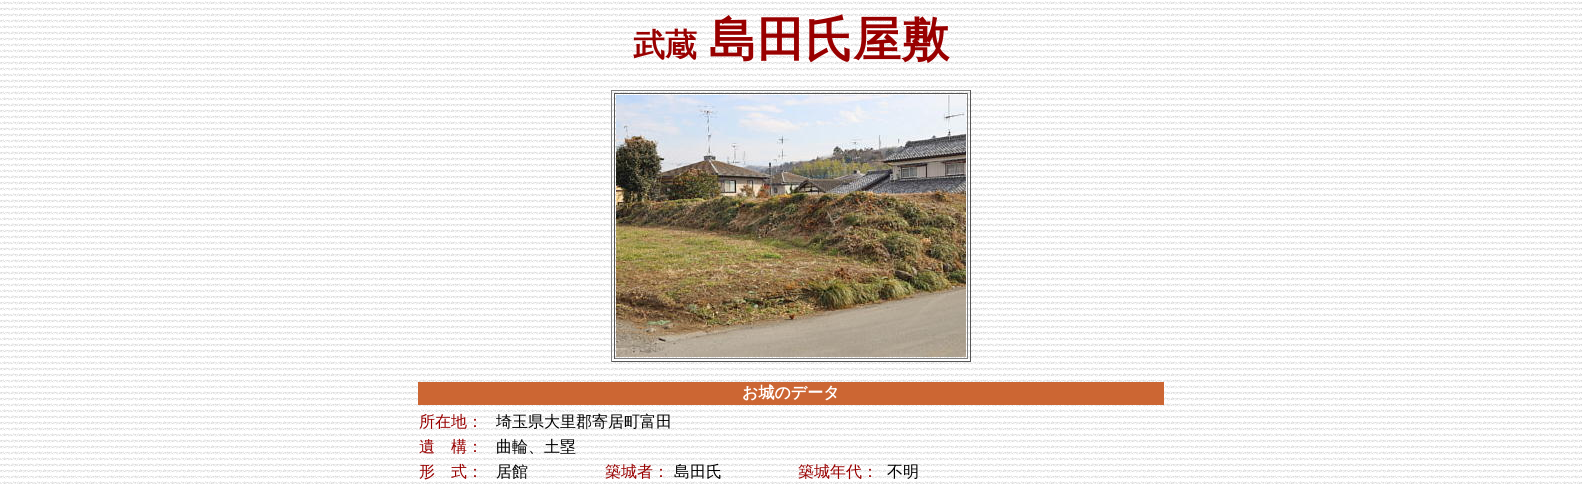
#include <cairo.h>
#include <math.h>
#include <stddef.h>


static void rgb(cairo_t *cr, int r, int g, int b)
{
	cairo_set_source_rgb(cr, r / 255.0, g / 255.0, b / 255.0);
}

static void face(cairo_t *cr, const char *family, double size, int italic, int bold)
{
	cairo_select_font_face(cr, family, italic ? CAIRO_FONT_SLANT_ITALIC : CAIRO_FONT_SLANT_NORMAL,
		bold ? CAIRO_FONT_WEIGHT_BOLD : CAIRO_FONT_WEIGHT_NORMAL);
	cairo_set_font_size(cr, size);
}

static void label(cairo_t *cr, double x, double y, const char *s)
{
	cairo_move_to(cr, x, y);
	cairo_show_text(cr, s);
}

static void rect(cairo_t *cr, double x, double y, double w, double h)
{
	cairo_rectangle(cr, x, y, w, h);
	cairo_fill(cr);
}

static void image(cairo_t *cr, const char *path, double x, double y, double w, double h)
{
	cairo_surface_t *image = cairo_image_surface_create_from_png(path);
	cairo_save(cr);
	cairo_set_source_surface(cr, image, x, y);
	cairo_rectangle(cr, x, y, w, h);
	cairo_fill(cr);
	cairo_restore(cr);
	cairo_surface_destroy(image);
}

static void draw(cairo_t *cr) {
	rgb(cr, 255, 255, 255);
	cairo_paint(cr);
	image(cr, "image0.png", 0, 1, 1582, 483);
	face(cr, "WenQuanYi Zen Hei", 32, 0, 1);
	rgb(cr, 153, 0, 0);
	label(cr, 633, 56, "武蔵");
	face(cr, "WenQuanYi Zen Hei", 48, 0, 1);
	label(cr, 709, 56, "島田氏屋敷");
	rgb(cr, 128, 128, 128);
	rect(cr, 611, 90, 360, 1);
	rgb(cr, 85, 85, 85);
	rect(cr, 970, 90, 1, 272);
	rect(cr, 611, 361, 360, 1);
	rgb(cr, 128, 128, 128);
	rect(cr, 611, 90, 1, 272);
	rgb(cr, 85, 85, 85);
	rect(cr, 614, 93, 354, 1);
	rgb(cr, 128, 128, 128);
	rect(cr, 967, 93, 1, 266);
	rect(cr, 614, 358, 354, 1);
	rgb(cr, 85, 85, 85);
	rect(cr, 614, 93, 1, 266);
	image(cr, "image1.png", 616, 95, 350, 262);
	rgb(cr, 204, 102, 51);
	rect(cr, 418, 382, 746, 23);
	face(cr, "WenQuanYi Zen Hei", 16, 0, 1);
	rgb(cr, 255, 255, 255);
	label(cr, 742, 398, "お城のデータ");
	face(cr, "WenQuanYi Zen Hei Medium", 16, 0, 0);
	rgb(cr, 153, 0, 0);
	label(cr, 419, 427, "所在地：");
	rgb(cr, 0, 0, 0);
	label(cr, 496, 427, "埼玉県大里郡寄居町富田");
	rgb(cr, 153, 0, 0);
	label(cr, 419, 452, "遺　構：");
	rgb(cr, 0, 0, 0);
	label(cr, 496, 452, "曲輪、土塁");
	rgb(cr, 153, 0, 0);
	label(cr, 419, 477, "形　式：");
	rgb(cr, 0, 0, 0);
	label(cr, 496, 477, "居館");
	rgb(cr, 153, 0, 0);
	label(cr, 605, 477, "築城者：");
	rgb(cr, 0, 0, 0);
	label(cr, 674, 477, "島田氏");
	rgb(cr, 153, 0, 0);
	label(cr, 798, 477, "築城年代：");
	rgb(cr, 0, 0, 0);
	label(cr, 887, 477, "不明");
}

int main(void) {
	cairo_surface_t *surface = cairo_image_surface_create(CAIRO_FORMAT_RGB24, 1582, 484);
	cairo_t *cr = cairo_create(surface);
	cairo_font_options_t *options = cairo_font_options_create();
	cairo_font_options_set_hint_metrics(options, CAIRO_HINT_METRICS_OFF);
	cairo_font_options_set_hint_style(options, CAIRO_HINT_STYLE_NONE);
	cairo_set_font_options(cr, options);
	cairo_set_miter_limit(cr, 4);
	draw(cr);
	cairo_surface_write_to_png(surface, "render.png");
	cairo_font_options_destroy(options);
	cairo_destroy(cr);
	cairo_surface_destroy(surface);
	return 0;
}
